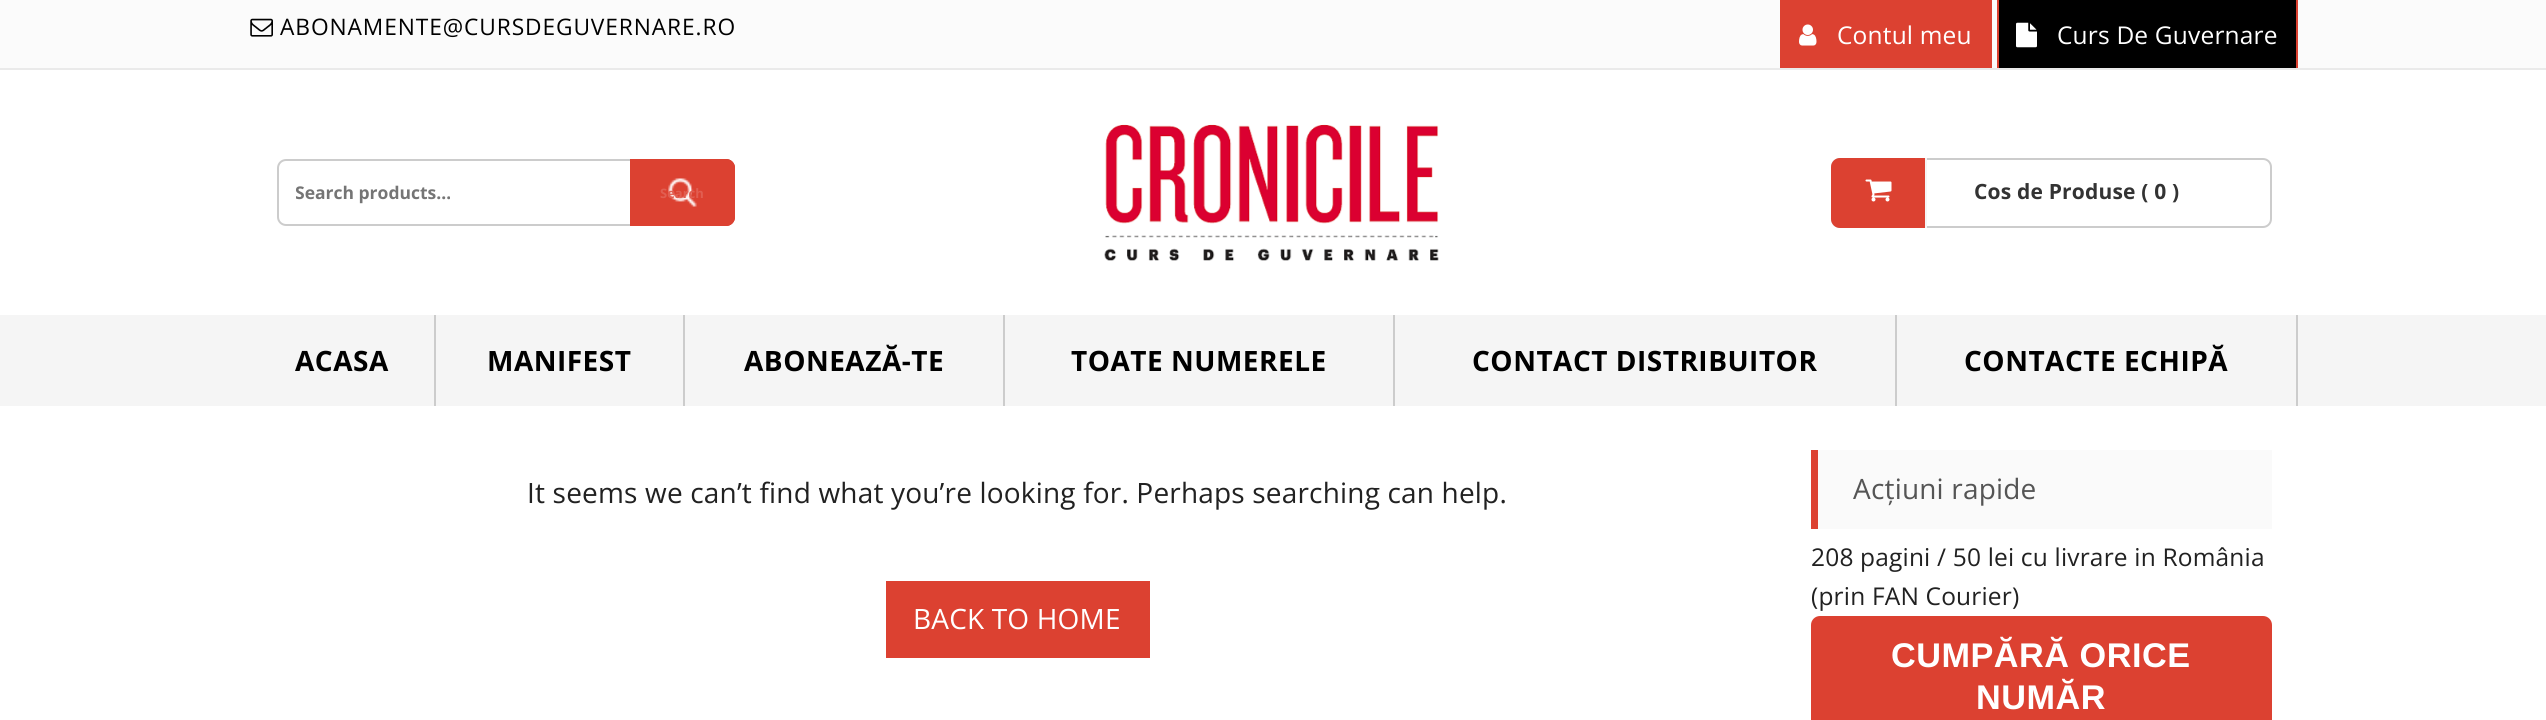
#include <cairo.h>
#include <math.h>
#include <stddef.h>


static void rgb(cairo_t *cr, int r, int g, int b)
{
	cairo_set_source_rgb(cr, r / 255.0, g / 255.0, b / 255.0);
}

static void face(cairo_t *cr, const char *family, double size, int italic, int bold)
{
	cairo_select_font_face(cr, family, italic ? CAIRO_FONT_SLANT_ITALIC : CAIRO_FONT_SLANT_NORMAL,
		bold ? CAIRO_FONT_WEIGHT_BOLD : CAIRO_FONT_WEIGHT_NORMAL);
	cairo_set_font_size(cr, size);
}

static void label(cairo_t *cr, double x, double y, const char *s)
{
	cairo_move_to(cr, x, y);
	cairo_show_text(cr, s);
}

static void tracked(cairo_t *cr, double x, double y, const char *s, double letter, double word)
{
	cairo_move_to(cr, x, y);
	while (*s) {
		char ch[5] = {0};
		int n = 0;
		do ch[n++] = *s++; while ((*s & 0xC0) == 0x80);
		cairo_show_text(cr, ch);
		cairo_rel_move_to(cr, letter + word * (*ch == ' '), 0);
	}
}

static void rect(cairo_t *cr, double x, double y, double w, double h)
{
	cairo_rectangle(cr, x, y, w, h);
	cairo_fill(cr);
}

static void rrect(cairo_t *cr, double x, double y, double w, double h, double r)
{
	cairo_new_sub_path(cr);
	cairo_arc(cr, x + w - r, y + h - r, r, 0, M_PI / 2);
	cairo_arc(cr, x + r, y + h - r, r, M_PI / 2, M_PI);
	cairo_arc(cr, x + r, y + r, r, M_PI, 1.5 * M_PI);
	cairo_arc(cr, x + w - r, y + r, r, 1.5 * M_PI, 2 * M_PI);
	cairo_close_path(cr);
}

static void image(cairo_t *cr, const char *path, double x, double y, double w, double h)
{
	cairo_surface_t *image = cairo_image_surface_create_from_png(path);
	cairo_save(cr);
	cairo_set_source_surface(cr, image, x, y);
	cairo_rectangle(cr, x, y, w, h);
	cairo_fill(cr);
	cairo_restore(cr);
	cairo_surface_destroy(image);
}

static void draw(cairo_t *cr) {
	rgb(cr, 255, 255, 255);
	cairo_paint(cr);
	rgb(cr, 251, 251, 251);
	rect(cr, 0, 0, 2546, 68);
	rgb(cr, 234, 234, 234);
	rect(cr, 0, 68, 2546, 2);
	image(cr, "image0.png", 250, 18, 23, 19);
	face(cr, "Open Sans", 22.75, 0, 0);
	rgb(cr, 0, 0, 0);
	tracked(cr, 280, 35, "ABONAMENTE@CURSDEGUVERNARE.RO", 0.9, 0);
	rgb(cr, 220, 65, 49);
	rect(cr, 1780, 0, 212, 68);
	image(cr, "image1.png", 1799, 24, 18, 22);
	face(cr, "Open Sans", 24.5, 0, 0);
	rgb(cr, 255, 255, 255);
	tracked(cr, 1837, 44, "Contul meu", 0.18, 0);
	rgb(cr, 0, 0, 0);
	rect(cr, 1999, 0, 297, 68);
	rgb(cr, 220, 65, 49);
	rect(cr, 2296, 0, 2, 68);
	rect(cr, 1997, 0, 2, 68);
	image(cr, "image2.png", 2016, 22, 21, 26);
	rgb(cr, 255, 255, 255);
	tracked(cr, 2057, 44, "Curs De Guvernare", 0.18, 0);
	rrect(cr, 278, 160, 456, 65, 8);
	rgb(cr, 204, 204, 204);
	cairo_stroke(cr);
	cairo_save(cr);
	cairo_rectangle(cr, 296, 180, 413, 25);
	cairo_clip(cr);
	face(cr, "Open Sans", 17.5, 0, 1);
	rgb(cr, 117, 117, 117);
	label(cr, 295, 199, "Search products…");
	cairo_restore(cr);
	rgb(cr, 220, 65, 49);
	cairo_new_path(cr);
	cairo_move_to(cr, 630, 159);
	cairo_line_to(cr, 726, 159);
	cairo_curve_to(cr, 731, 159, 735, 163, 735, 168);
	cairo_line_to(cr, 735, 217);
	cairo_curve_to(cr, 735, 222, 731, 226, 726, 226);
	cairo_line_to(cr, 630, 226);
	cairo_close_path(cr);
	cairo_fill(cr);
	image(cr, "image3.png", 668, 178, 29, 29);
	cairo_new_path(cr);
	cairo_move_to(cr, 631, 160);
	cairo_line_to(cr, 726, 160);
	cairo_curve_to(cr, 730.5, 160, 734, 163.5, 734, 168);
	cairo_line_to(cr, 734, 217);
	cairo_curve_to(cr, 734, 221.5, 730.5, 225, 726, 225);
	cairo_line_to(cr, 631, 225);
	cairo_close_path(cr);
	cairo_stroke(cr);
	face(cr, "Open Sans", 13, 0, 1);
	rgb(cr, 225, 94, 81);
	label(cr, 660, 198, "Search");
	image(cr, "image4.png", 1104, 124, 335, 137);
	rrect(cr, 1832, 159, 439, 68, 8);
	rgb(cr, 204, 204, 204);
	cairo_stroke(cr);
	rgb(cr, 220, 65, 49);
	cairo_new_path(cr);
	cairo_move_to(cr, 1840, 158);
	cairo_line_to(cr, 1927, 158);
	cairo_line_to(cr, 1927, 228);
	cairo_line_to(cr, 1840, 228);
	cairo_curve_to(cr, 1835, 228, 1831, 224, 1831, 219);
	cairo_line_to(cr, 1831, 167);
	cairo_curve_to(cr, 1831, 162, 1835, 158, 1840, 158);
	cairo_close_path(cr);
	cairo_fill(cr);
	rgb(cr, 245, 245, 245);
	rect(cr, 1925, 158, 2, 70);
	image(cr, "image5.png", 1865, 179, 27, 23);
	face(cr, "Open Sans", 21, 0, 1);
	rgb(cr, 51, 51, 51);
	tracked(cr, 1974, 199, "Cos de Produse ( 0 )", 0.18, 0);
	rgb(cr, 245, 245, 245);
	rect(cr, 0, 315, 2546, 91);
	rgb(cr, 204, 204, 204);
	rect(cr, 434, 315, 2, 91);
	face(cr, "Open Sans", 28, 0, 1);
	rgb(cr, 0, 0, 0);
	tracked(cr, 295, 371, "ACASA", 0.5, 0);
	rgb(cr, 204, 204, 204);
	rect(cr, 683, 315, 2, 91);
	rgb(cr, 0, 0, 0);
	tracked(cr, 487, 371, "MANIFEST", 0.5, 0);
	rgb(cr, 204, 204, 204);
	rect(cr, 1003, 315, 2, 91);
	rgb(cr, 0, 0, 0);
	tracked(cr, 744, 371, "ABONEAZĂ-TE", 0.5, 0);
	rgb(cr, 204, 204, 204);
	rect(cr, 1393, 315, 2, 91);
	rgb(cr, 0, 0, 0);
	tracked(cr, 1071, 371, "TOATE NUMERELE", 0.5, 0);
	rgb(cr, 204, 204, 204);
	rect(cr, 1895, 315, 2, 91);
	rgb(cr, 0, 0, 0);
	tracked(cr, 1472, 371, "CONTACT DISTRIBUITOR", 0.5, 0);
	rgb(cr, 204, 204, 204);
	rect(cr, 2296, 315, 2, 91);
	rgb(cr, 0, 0, 0);
	tracked(cr, 1964, 371, "CONTACTE ECHIPĂ", 0.5, 0);
	face(cr, "Open Sans", 28, 0, 0);
	rgb(cr, 33, 33, 33);
	tracked(cr, 527, 503, "It seems we can’t find what you’re looking for. Perhaps searching can help.", 0.18, 0);
	rgb(cr, 220, 65, 49);
	rect(cr, 886, 581, 264, 77);
	rgb(cr, 255, 255, 255);
	tracked(cr, 913, 629, "BACK TO HOME", 0.18, 0);
	rgb(cr, 250, 250, 250);
	rect(cr, 1818, 450, 454, 79);
	rgb(cr, 220, 65, 49);
	rect(cr, 1811, 450, 7, 79);
	rgb(cr, 85, 85, 85);
	tracked(cr, 1853, 499, "Acțiuni rapide", 0.18, 0);
	face(cr, "Open Sans", 24.5, 0, 0);
	rgb(cr, 33, 33, 33);
	tracked(cr, 1811, 566, "208 pagini / 50 lei cu livrare in România", 0.18, 0);
	tracked(cr, 1811, 605, "(prin FAN Courier)", 0.18, 0);
	rgb(cr, 220, 65, 49);
	rrect(cr, 1811, 616, 461, 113, 9);
	cairo_fill(cr);
	face(cr, "Liberation Sans", 34.25, 0, 1);
	rgb(cr, 255, 255, 255);
	tracked(cr, 1891, 667, "CUMPĂRĂ ORICE", 0.5, 0);
	tracked(cr, 1976, 709, "NUMĂR", 0.5, 0);
}

int main(void) {
	cairo_surface_t *surface = cairo_image_surface_create(CAIRO_FORMAT_RGB24, 2546, 720);
	cairo_t *cr = cairo_create(surface);
	cairo_font_options_t *options = cairo_font_options_create();
	cairo_font_options_set_hint_metrics(options, CAIRO_HINT_METRICS_OFF);
	cairo_font_options_set_hint_style(options, CAIRO_HINT_STYLE_NONE);
	cairo_set_font_options(cr, options);
	cairo_set_miter_limit(cr, 4);
	draw(cr);
	cairo_surface_write_to_png(surface, "render.png");
	cairo_font_options_destroy(options);
	cairo_destroy(cr);
	cairo_surface_destroy(surface);
	return 0;
}
